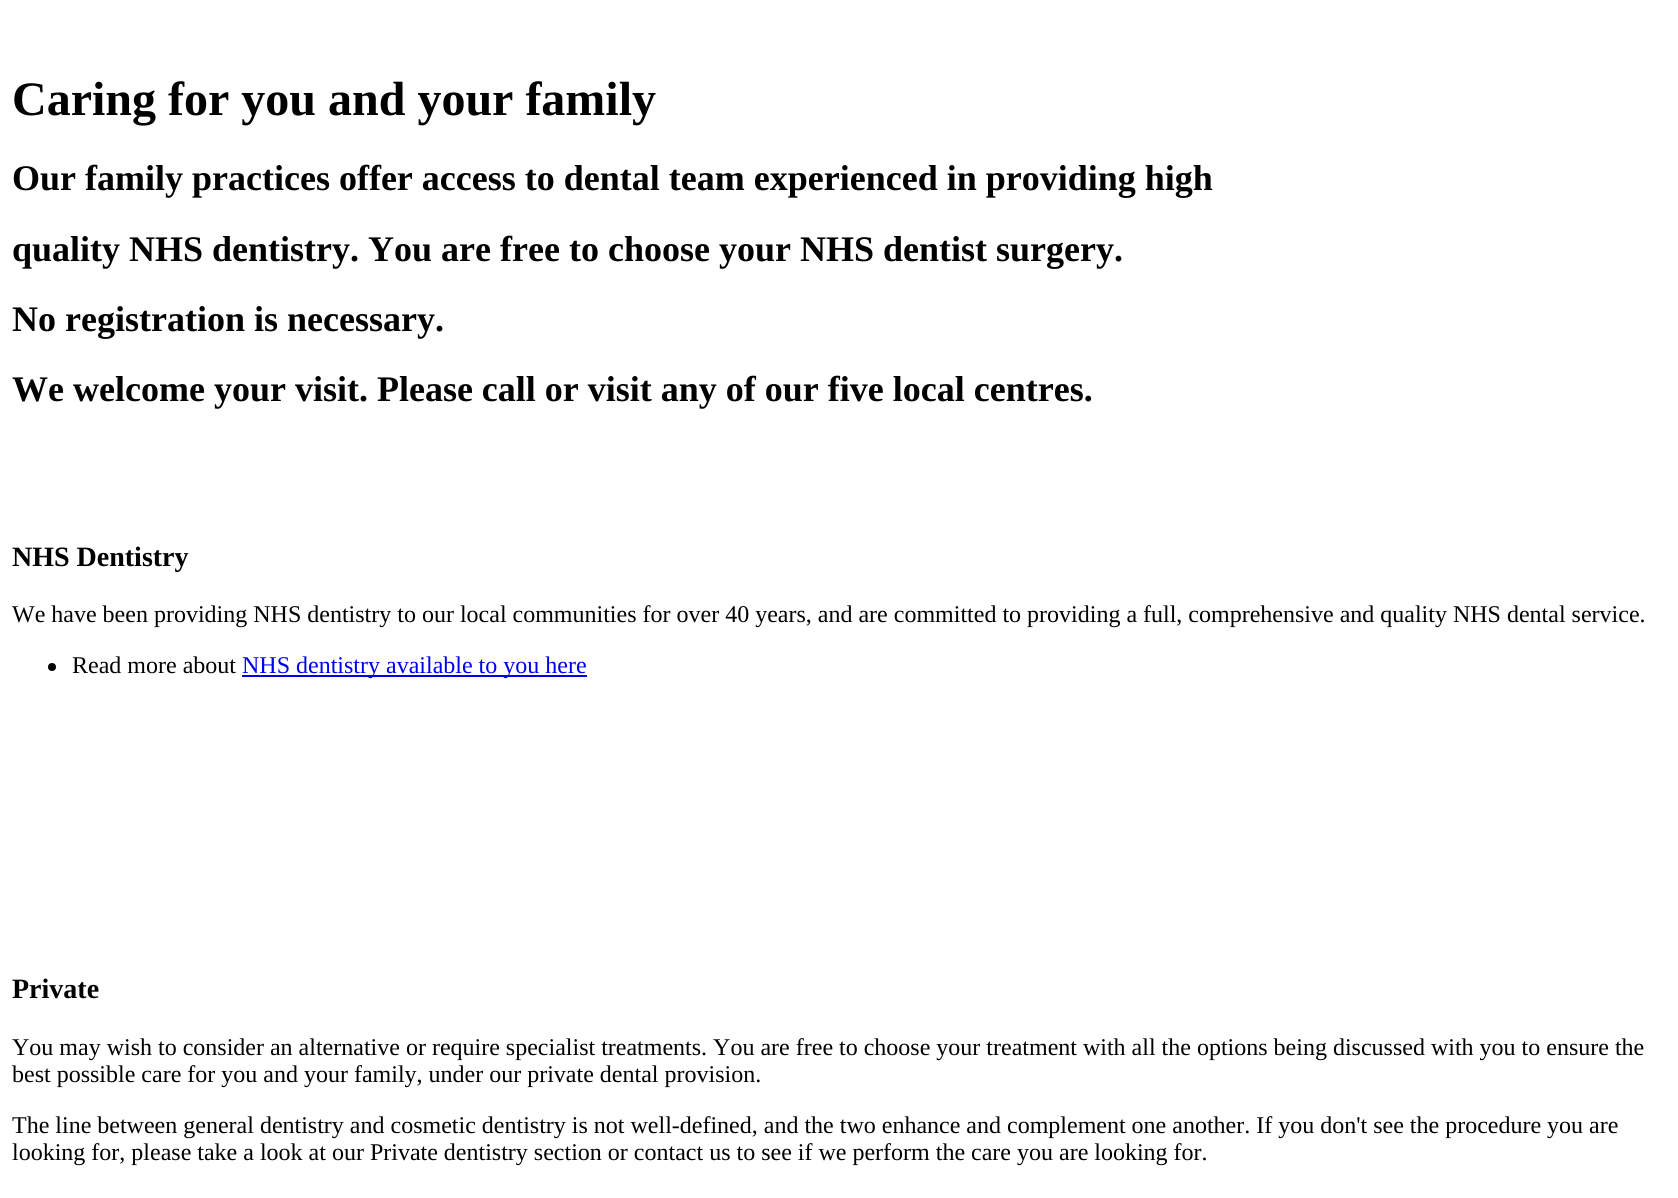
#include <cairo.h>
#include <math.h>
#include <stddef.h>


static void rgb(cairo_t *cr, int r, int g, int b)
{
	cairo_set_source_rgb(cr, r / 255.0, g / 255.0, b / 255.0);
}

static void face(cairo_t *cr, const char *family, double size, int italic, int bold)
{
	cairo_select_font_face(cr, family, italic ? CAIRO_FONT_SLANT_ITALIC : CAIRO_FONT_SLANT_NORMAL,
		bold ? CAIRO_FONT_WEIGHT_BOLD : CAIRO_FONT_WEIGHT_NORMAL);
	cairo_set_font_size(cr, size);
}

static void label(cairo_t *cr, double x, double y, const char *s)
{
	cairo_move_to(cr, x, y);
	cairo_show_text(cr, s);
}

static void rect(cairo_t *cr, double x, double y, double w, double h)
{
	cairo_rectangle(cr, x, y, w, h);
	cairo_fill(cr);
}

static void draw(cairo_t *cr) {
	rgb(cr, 255, 255, 255);
	cairo_paint(cr);
	face(cr, "Liberation Serif", 48, 0, 1);
	rgb(cr, 0, 0, 0);
	label(cr, 12, 115, "Caring for you and your family");
	face(cr, "Liberation Serif", 36, 0, 1);
	label(cr, 12, 190, "Our family practices offer access to dental team experienced in providing high");
	label(cr, 12, 261, "quality NHS dentistry. You are free to choose your NHS dentist surgery.");
	label(cr, 12, 331, "No registration is necessary.");
	label(cr, 12, 401, "We welcome your visit. Please call or visit any of our five local centres.");
	face(cr, "Liberation Serif", 28, 0, 1);
	label(cr, 12, 566, "NHS Dentistry");
	face(cr, "Liberation Serif", 24, 0, 0);
	label(cr, 12, 622, "We have been providing NHS dentistry to our local communities for over 40 years, and are committed to providing a full, comprehensive and quality NHS dental service.");
	cairo_new_path(cr);
	cairo_arc(cr, 52, 667, 4, 0, 2 * M_PI);
	cairo_fill(cr);
	label(cr, 72, 673, "Read more about");
	rgb(cr, 0, 0, 238);
	rect(cr, 242, 675, 345, 2);
	label(cr, 242, 673, "NHS dentistry available to you here");
	face(cr, "Liberation Serif", 28, 0, 1);
	rgb(cr, 0, 0, 0);
	label(cr, 12, 998, "Private");
	face(cr, "Liberation Serif", 24, 0, 0);
	label(cr, 12, 1055, "You may wish to consider an alternative or require specialist treatments. You are free to choose your treatment with all the options being discussed with you to ensure the");
	label(cr, 12, 1082, "best possible care for you and your family, under our private dental provision.");
	label(cr, 12, 1133, "The line between general dentistry and cosmetic dentistry is not well-defined, and the two enhance and complement one another. If you don't see the procedure you are");
	label(cr, 12, 1160, "looking for, please take a look at our Private dentistry section or contact us to see if we perform the care you are looking for.");
}

int main(void) {
	cairo_surface_t *surface = cairo_image_surface_create(CAIRO_FORMAT_RGB24, 1678, 1198);
	cairo_t *cr = cairo_create(surface);
	cairo_font_options_t *options = cairo_font_options_create();
	cairo_font_options_set_hint_metrics(options, CAIRO_HINT_METRICS_OFF);
	cairo_font_options_set_hint_style(options, CAIRO_HINT_STYLE_NONE);
	cairo_set_font_options(cr, options);
	cairo_set_miter_limit(cr, 4);
	draw(cr);
	cairo_surface_write_to_png(surface, "render.png");
	cairo_font_options_destroy(options);
	cairo_destroy(cr);
	cairo_surface_destroy(surface);
	return 0;
}
